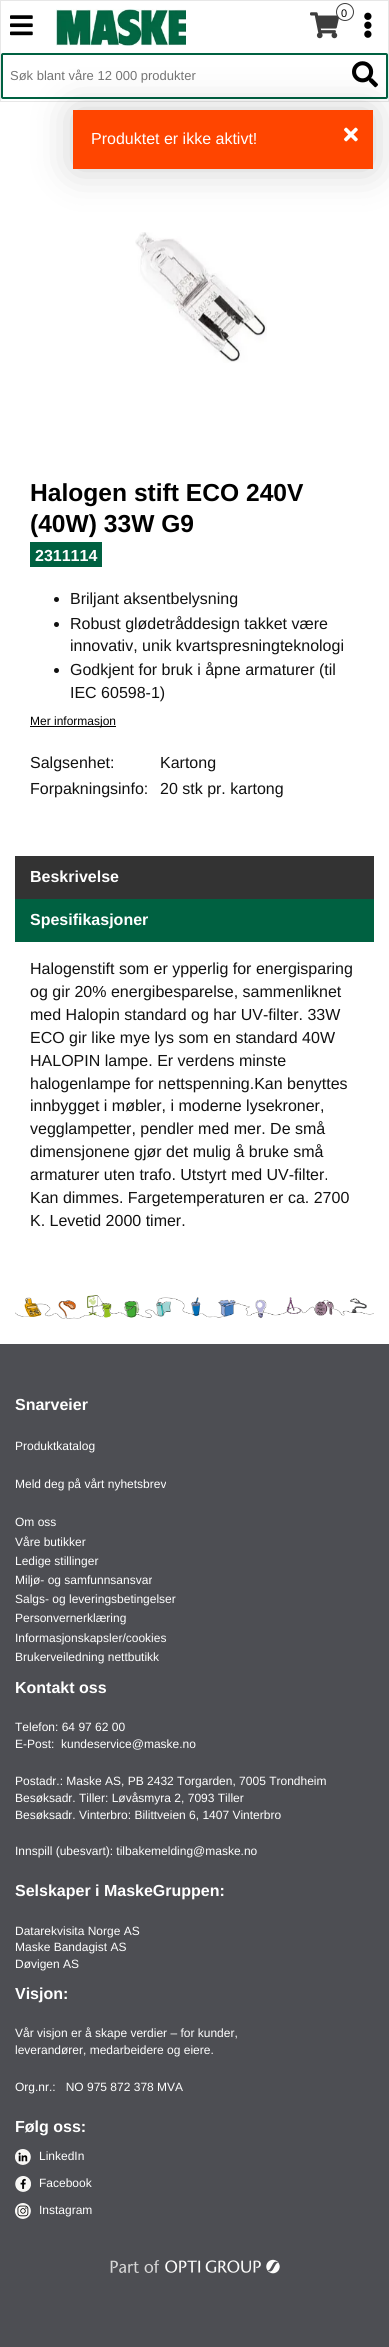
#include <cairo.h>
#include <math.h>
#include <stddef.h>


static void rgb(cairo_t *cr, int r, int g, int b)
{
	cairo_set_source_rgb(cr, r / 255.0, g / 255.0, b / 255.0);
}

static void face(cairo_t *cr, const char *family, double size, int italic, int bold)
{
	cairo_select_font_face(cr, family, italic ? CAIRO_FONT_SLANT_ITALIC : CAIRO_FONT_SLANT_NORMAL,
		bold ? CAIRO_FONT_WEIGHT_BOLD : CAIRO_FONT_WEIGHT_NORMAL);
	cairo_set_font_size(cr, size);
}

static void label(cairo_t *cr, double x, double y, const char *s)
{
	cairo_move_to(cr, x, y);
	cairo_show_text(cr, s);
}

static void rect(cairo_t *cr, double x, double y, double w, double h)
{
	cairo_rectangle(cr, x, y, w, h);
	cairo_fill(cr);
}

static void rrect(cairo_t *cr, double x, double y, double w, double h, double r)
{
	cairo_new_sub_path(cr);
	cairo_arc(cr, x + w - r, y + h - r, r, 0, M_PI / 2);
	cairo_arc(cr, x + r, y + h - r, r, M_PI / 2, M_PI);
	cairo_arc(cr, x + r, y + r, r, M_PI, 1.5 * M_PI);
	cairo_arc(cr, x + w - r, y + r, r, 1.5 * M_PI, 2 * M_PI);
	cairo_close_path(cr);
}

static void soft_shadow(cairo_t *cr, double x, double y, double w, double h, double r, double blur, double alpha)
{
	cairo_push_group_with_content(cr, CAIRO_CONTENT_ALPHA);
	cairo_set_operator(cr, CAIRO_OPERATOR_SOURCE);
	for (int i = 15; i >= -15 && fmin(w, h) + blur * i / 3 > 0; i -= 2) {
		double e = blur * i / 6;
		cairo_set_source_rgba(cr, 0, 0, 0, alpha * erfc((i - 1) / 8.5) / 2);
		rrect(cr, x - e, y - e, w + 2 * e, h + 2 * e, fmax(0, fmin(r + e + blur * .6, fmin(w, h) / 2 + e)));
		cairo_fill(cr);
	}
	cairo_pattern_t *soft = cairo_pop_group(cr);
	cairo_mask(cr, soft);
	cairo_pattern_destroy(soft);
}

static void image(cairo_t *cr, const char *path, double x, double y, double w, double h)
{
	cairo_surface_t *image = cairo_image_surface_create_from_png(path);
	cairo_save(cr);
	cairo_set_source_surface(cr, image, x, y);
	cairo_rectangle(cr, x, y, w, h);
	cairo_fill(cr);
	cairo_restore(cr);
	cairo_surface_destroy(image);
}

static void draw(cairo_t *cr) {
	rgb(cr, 255, 255, 255);
	cairo_paint(cr);
	cairo_rectangle(cr, 0.5, 0.5, 388, 101);
	rgb(cr, 231, 231, 231);
	cairo_set_line_width(cr, 1);
	cairo_stroke(cr);
	image(cr, "image0.png", 56, 9, 130, 37);
	image(cr, "image1.png", 310, 12, 29, 27);
	rgb(cr, 255, 255, 255);
	cairo_arc(cr, 345, 12, 8.5, 0, 2 * M_PI);
	cairo_fill_preserve(cr);
	rgb(cr, 61, 61, 61);
	cairo_stroke(cr);
	face(cr, "Liberation Sans", 11, 0, 0);
	rgb(cr, 0, 0, 0);
	label(cr, 341, 17, "0");
	image(cr, "image2.png", 364, 12, 8, 26);
	image(cr, "image3.png", 10, 15, 23, 21);
	rrect(cr, 2, 54, 385, 44, 1);
	rgb(cr, 0, 97, 65);
	cairo_set_line_width(cr, 2);
	cairo_stroke(cr);
	face(cr, "Liberation Sans", 13, 0, 0);
	rgb(cr, 117, 117, 117);
	label(cr, 10, 80, "Søk blant våre 12 000 produkter");
	image(cr, "image4.png", 352, 61, 26, 27);
	rgb(cr, 0, 0, 0);
	soft_shadow(cr, 73, 110, 300, 59, 2, 20, 0.2);
	rgb(cr, 255, 69, 0);
	rect(cr, 73, 110, 300, 59);
	face(cr, "Liberation Sans", 16, 0, 0);
	rgb(cr, 255, 255, 255);
	label(cr, 91, 144, "Produktet er ikke aktivt!");
	image(cr, "image5.png", 344, 127, 14, 15);
	image(cr, "image6.png", 135, 232, 132, 131);
	face(cr, "Liberation Sans", 24.6, 0, 1);
	rgb(cr, 0, 0, 0);
	label(cr, 30, 501, "Halogen stift ECO 240V");
	label(cr, 30, 532, "(40W) 33W G9");
	rgb(cr, 0, 97, 65);
	rect(cr, 30, 542, 72, 25);
	face(cr, "Liberation Sans", 16, 0, 1);
	rgb(cr, 255, 255, 255);
	label(cr, 35, 561, "2311114");
	rgb(cr, 17, 17, 17);
	cairo_new_path(cr);
	cairo_arc(cr, 56.5, 599.5, 2.5, 0, 2 * M_PI);
	cairo_fill(cr);
	face(cr, "Liberation Sans", 16, 0, 0);
	label(cr, 70, 604, "Briljant aksentbelysning");
	cairo_new_path(cr);
	cairo_arc(cr, 56.5, 624.5, 2.5, 0, 2 * M_PI);
	cairo_fill(cr);
	label(cr, 70, 629, "Robust glødetråddesign takket være");
	label(cr, 70, 651, "innovativ, unik kvartspresningteknologi");
	cairo_new_path(cr);
	cairo_arc(cr, 56.5, 670.5, 2.5, 0, 2 * M_PI);
	cairo_fill(cr);
	label(cr, 70, 675, "Godkjent for bruk i åpne armaturer (til");
	label(cr, 70, 698, "IEC 60598-1)");
	rgb(cr, 0, 0, 0);
	rect(cr, 30, 726, 86, 1);
	face(cr, "Liberation Sans", 12, 0, 0);
	label(cr, 30, 725, "Mer informasjon");
	face(cr, "Liberation Sans", 16, 0, 0);
	rgb(cr, 17, 17, 17);
	label(cr, 30, 768, "Salgsenhet:");
	label(cr, 160, 768, "Kartong");
	label(cr, 30, 794, "Forpakningsinfo:");
	label(cr, 160, 794, "20 stk pr. kartong");
	rgb(cr, 51, 51, 51);
	rect(cr, 15, 856, 359, 43);
	face(cr, "Liberation Sans", 16, 0, 1);
	rgb(cr, 255, 255, 255);
	label(cr, 30, 882, "Beskrivelse");
	rgb(cr, 0, 97, 65);
	rect(cr, 15, 899, 359, 43);
	rgb(cr, 255, 255, 255);
	label(cr, 30, 925, "Spesifikasjoner");
	face(cr, "Liberation Sans", 16, 0, 0);
	rgb(cr, 17, 17, 17);
	label(cr, 30, 974, "Halogenstift som er ypperlig for energisparing");
	label(cr, 30, 997, "og gir 20% energibesparelse, sammenliknet");
	label(cr, 30, 1020, "med Halopin standard og har UV-filter. 33W");
	label(cr, 30, 1043, "ECO gir like mye lys som en standard 40W");
	label(cr, 30, 1066, "HALOPIN lampe. Er verdens minste");
	label(cr, 30, 1089, "halogenlampe for nettspenning.Kan benyttes");
	label(cr, 30, 1111, "innbygget i møbler, i moderne lysekroner,");
	label(cr, 30, 1134, "vegglampetter, pendler med mer. De små");
	label(cr, 30, 1157, "dimensjonene gjør det mulig å bruke små");
	label(cr, 30, 1180, "armaturer uten trafo. Utstyrt med UV-filter.");
	label(cr, 30, 1203, "Kan dimmes. Fargetemperaturen er ca. 2700");
	label(cr, 30, 1226, "K. Levetid 2000 timer.");
	image(cr, "image7.png", 15, 1295, 359, 24);
	rgb(cr, 77, 78, 83);
	rect(cr, 0, 1344, 389, 1003);
	face(cr, "Liberation Sans", 16, 0, 1);
	rgb(cr, 255, 255, 255);
	label(cr, 15, 1410, "Snarveier");
	face(cr, "Liberation Sans", 12, 0, 0);
	label(cr, 15, 1450, "Produktkatalog");
	label(cr, 15, 1488, "Meld deg på vårt nyhetsbrev");
	label(cr, 15, 1526, "Om oss");
	label(cr, 15, 1546, "Våre butikker");
	label(cr, 15, 1565, "Ledige stillinger");
	label(cr, 15, 1584, "Miljø- og samfunnsansvar");
	label(cr, 15, 1603, "Salgs- og leveringsbetingelser");
	label(cr, 15, 1622, "Personvernerklæring");
	label(cr, 15, 1642, "Informasjonskapsler/cookies");
	label(cr, 15, 1661, "Brukerveiledning nettbutikk");
	face(cr, "Liberation Sans", 16, 0, 1);
	label(cr, 15, 1693, "Kontakt oss");
	face(cr, "Liberation Sans", 12, 0, 0);
	label(cr, 15, 1731, "Telefon: 64 97 62 00");
	label(cr, 15, 1748, "E-Post:");
	label(cr, 61, 1748, "kundeservice@maske.no");
	label(cr, 15, 1785, "Postadr.: Maske AS, PB 2432 Torgarden, 7005 Trondheim");
	label(cr, 15, 1802, "Besøksadr. Tiller: Løvåsmyra 2, 7093 Tiller");
	label(cr, 15, 1819, "Besøksadr. Vinterbro: Bilittveien 6, 1407 Vinterbro");
	label(cr, 15, 1855, "Innspill (ubesvart): tilbakemelding@maske.no");
	face(cr, "Liberation Sans", 16, 0, 1);
	label(cr, 15, 1896, "Selskaper i MaskeGruppen:");
	face(cr, "Liberation Sans", 12, 0, 0);
	label(cr, 15, 1935, "Datarekvisita Norge AS");
	label(cr, 15, 1951, "Maske Bandagist AS");
	label(cr, 15, 1968, "Døvigen AS");
	face(cr, "Liberation Sans", 16, 0, 1);
	label(cr, 15, 1999, "Visjon:");
	face(cr, "Liberation Sans", 12, 0, 0);
	label(cr, 15, 2037, "Vår visjon er å skape verdier – for kunder,");
	label(cr, 15, 2054, "leverandører, medarbeidere og eiere.");
	label(cr, 15, 2091, "Org.nr.:   NO 975 872 378 MVA");
	face(cr, "Liberation Sans", 16, 0, 1);
	label(cr, 15, 2132, "Følg oss:");
	image(cr, "image8.png", 15, 2149, 16, 16);
	face(cr, "Liberation Sans", 12, 0, 0);
	label(cr, 39, 2160, "LinkedIn");
	image(cr, "image9.png", 15, 2176, 16, 16);
	label(cr, 39, 2187, "Facebook");
	image(cr, "image10.png", 15, 2203, 16, 16);
	label(cr, 39, 2214, "Instagram");
	image(cr, "image11.png", 110, 2259, 170, 15);
}

int main(void) {
	cairo_surface_t *surface = cairo_image_surface_create(CAIRO_FORMAT_RGB24, 389, 2347);
	cairo_t *cr = cairo_create(surface);
	cairo_font_options_t *options = cairo_font_options_create();
	cairo_font_options_set_hint_metrics(options, CAIRO_HINT_METRICS_OFF);
	cairo_font_options_set_hint_style(options, CAIRO_HINT_STYLE_NONE);
	cairo_set_font_options(cr, options);
	cairo_set_miter_limit(cr, 4);
	draw(cr);
	cairo_surface_write_to_png(surface, "render.png");
	cairo_font_options_destroy(options);
	cairo_destroy(cr);
	cairo_surface_destroy(surface);
	return 0;
}
